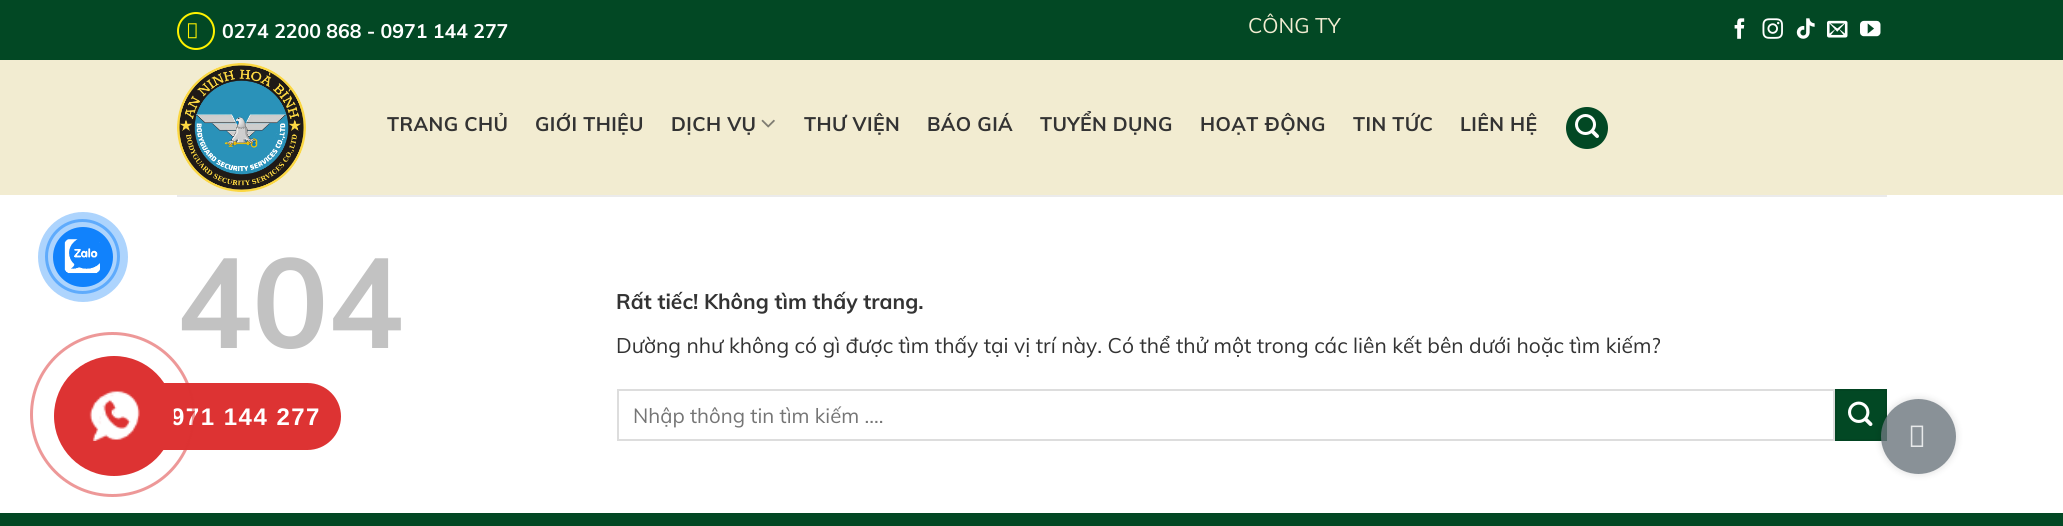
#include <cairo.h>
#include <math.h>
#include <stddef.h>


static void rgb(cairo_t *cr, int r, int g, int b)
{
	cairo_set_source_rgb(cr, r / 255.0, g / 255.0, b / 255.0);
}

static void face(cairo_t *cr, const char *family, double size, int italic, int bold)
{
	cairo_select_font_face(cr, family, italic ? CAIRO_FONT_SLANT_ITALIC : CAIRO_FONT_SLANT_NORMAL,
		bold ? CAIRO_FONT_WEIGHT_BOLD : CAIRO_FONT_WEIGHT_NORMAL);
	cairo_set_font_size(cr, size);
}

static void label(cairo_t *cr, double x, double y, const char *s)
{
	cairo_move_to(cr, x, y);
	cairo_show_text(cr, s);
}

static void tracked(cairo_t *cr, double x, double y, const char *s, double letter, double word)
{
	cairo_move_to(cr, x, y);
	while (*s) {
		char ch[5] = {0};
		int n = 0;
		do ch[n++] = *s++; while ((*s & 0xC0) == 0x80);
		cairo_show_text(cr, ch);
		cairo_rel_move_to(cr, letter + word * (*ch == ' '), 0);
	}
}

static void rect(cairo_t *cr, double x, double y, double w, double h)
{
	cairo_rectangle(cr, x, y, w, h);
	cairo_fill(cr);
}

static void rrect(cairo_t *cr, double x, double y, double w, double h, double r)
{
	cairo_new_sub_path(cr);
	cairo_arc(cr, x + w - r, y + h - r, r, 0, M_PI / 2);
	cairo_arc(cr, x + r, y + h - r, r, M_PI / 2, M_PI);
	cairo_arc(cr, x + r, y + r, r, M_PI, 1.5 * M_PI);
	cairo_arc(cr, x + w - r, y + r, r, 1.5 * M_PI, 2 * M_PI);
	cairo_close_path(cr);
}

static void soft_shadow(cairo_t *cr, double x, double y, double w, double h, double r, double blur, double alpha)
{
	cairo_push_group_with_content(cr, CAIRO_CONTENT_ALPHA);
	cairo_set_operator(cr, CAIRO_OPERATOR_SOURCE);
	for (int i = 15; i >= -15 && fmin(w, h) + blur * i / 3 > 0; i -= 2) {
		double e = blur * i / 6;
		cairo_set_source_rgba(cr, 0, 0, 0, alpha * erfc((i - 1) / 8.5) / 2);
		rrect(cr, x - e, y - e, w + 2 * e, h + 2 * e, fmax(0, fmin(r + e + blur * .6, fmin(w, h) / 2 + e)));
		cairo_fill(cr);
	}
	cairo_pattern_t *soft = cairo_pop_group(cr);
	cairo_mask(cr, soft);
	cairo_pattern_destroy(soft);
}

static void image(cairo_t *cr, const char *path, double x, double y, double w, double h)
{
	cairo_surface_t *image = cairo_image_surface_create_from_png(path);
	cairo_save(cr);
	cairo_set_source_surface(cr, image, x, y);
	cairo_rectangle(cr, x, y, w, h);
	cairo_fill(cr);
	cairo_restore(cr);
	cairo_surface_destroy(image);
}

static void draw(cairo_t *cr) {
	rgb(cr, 255, 255, 255);
	cairo_paint(cr);
	cairo_arc(cr, 82.5, 256.5, 36, 0, 2 * M_PI);
	rgb(cr, 136, 193, 254);
	cairo_set_line_width(cr, 3);
	cairo_stroke(cr);
	cairo_set_source_rgba(cr, 0.067, 0.51, 0.988, 0.34);
	cairo_arc(cr, 83, 257, 45, 0, 2 * M_PI);
	cairo_fill(cr);
	rgb(cr, 17, 130, 252);
	cairo_arc(cr, 83, 257, 30, 0, 2 * M_PI);
	cairo_fill(cr);
	image(cr, "image0.png", 64, 239, 36, 35);
	rgb(cr, 2, 72, 36);
	rect(cr, 0, 0, 2063, 60);
	cairo_arc(cr, 196, 31, 18, 0, 2 * M_PI);
	rgb(cr, 255, 242, 0);
	cairo_set_line_width(cr, 2);
	cairo_stroke(cr);
	image(cr, "image1.png", 187, 23, 10, 16);
	face(cr, "Muli", 19.5, 0, 1);
	rgb(cr, 255, 255, 255);
	label(cr, 222, 38, "0274 2200 868 - 0971 144 277");
	face(cr, "Muli", 21, 0, 0);
	rgb(cr, 242, 236, 209);
	label(cr, 1248, 33, "CÔNG TY");
	image(cr, "image2.png", 1734, 18, 11, 21);
	image(cr, "image3.png", 1762, 18, 21, 21);
	image(cr, "image4.png", 1796, 18, 19, 21);
	image(cr, "image5.png", 1827, 20, 21, 18);
	image(cr, "image6.png", 1860, 20, 21, 17);
	rect(cr, 0, 60, 2063, 135);
	image(cr, "image7.png", 177, 63, 129, 129);
	face(cr, "Muli", 19.5, 0, 1);
	rgb(cr, 51, 51, 51);
	tracked(cr, 387, 131, "TRANG CHỦ", 0.4, 0);
	tracked(cr, 535, 131, "GIỚI THIỆU", 0.4, 0);
	tracked(cr, 671, 131, "DỊCH VỤ", 0.4, 0);
	image(cr, "image8.png", 761, 119, 14, 9);
	tracked(cr, 804, 131, "THƯ VIỆN", 0.4, 0);
	tracked(cr, 927, 131, "BÁO GIÁ", 0.4, 0);
	tracked(cr, 1040, 131, "TUYỂN DỤNG", 0.4, 0);
	tracked(cr, 1200, 131, "HOẠT ĐỘNG", 0.4, 0);
	tracked(cr, 1353, 131, "TIN TỨC", 0.4, 0);
	tracked(cr, 1460, 131, "LIÊN HỆ", 0.4, 0);
	rgb(cr, 2, 72, 36);
	cairo_new_path(cr);
	cairo_arc(cr, 1587, 128, 21, 0, 2 * M_PI);
	cairo_fill(cr);
	image(cr, "image9.png", 1575, 114, 24, 24);
	rgb(cr, 235, 235, 235);
	rect(cr, 177, 195, 1710, 2);
	face(cr, "Muli", 126, 0, 1);
	rgb(cr, 194, 194, 194);
	label(cr, 177, 348, "404");
	face(cr, "Muli", 21, 0, 1);
	rgb(cr, 51, 51, 51);
	label(cr, 616, 309, "Rất tiếc! Không tìm thấy trang.");
	face(cr, "Muli", 21, 0, 0);
	label(cr, 616, 353, "Dường như không có gì được tìm thấy tại vị trí này. Có thể thử một trong các liên kết bên dưới hoặc tìm kiếm?");
	cairo_rectangle(cr, 618, 390, 1216, 50);
	rgb(cr, 221, 221, 221);
	cairo_stroke(cr);
	face(cr, "Muli", 20.4, 0, 0);
	rgb(cr, 117, 117, 117);
	label(cr, 633, 423, "Nhập thông tin tìm kiếm ....");
	rgb(cr, 2, 72, 36);
	cairo_rectangle(cr, 1836, 390, 50, 50);
	cairo_fill_preserve(cr);
	rgb(cr, 2, 68, 34);
	cairo_stroke(cr);
	image(cr, "image10.png", 1848, 401, 25, 25);
	cairo_save(cr);
	cairo_set_fill_rule(cr, CAIRO_FILL_RULE_EVEN_ODD);
	cairo_new_path(cr);
	cairo_move_to(cr, 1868, 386);
	cairo_line_to(cr, 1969, 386);
	cairo_line_to(cr, 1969, 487);
	cairo_line_to(cr, 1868, 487);
	cairo_close_path(cr);
	cairo_move_to(cr, 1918.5, 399);
	cairo_curve_to(cr, 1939, 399, 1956, 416, 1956, 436.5);
	cairo_curve_to(cr, 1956, 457, 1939, 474, 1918.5, 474);
	cairo_curve_to(cr, 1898, 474, 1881, 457, 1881, 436.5);
	cairo_curve_to(cr, 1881, 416, 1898, 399, 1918.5, 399);
	cairo_close_path(cr);
	cairo_clip(cr);
	rgb(cr, 0, 0, 0);
	soft_shadow(cr, 1881, 399, 75, 75, 37.5, 4, 0.14);
	cairo_restore(cr);
	cairo_set_source_rgba(cr, 0.424, 0.459, 0.49, 0.8);
	cairo_arc(cr, 1918.5, 436.5, 37.5, 0, 2 * M_PI);
	cairo_fill(cr);
	image(cr, "image11.png", 1910, 425, 14, 22);
	rgb(cr, 2, 72, 36);
	rect(cr, 0, 513, 2063, 13);
	rgb(cr, 221, 51, 51);
	rrect(cr, 93, 383, 248, 67, 33.5);
	cairo_fill(cr);
	face(cr, "Liberation Sans", 24, 0, 1);
	rgb(cr, 255, 255, 255);
	tracked(cr, 171, 425, "971 144 277", 1.5, 0);
	cairo_new_path(cr);
	cairo_arc(cr, 112.5, 414.5, 81, 0, 2 * M_PI);
	cairo_set_source_rgba(cr, 0.867, 0.2, 0.2, 0.5);
	cairo_set_line_width(cr, 3);
	cairo_stroke(cr);
	rgb(cr, 221, 51, 51);
	cairo_arc(cr, 114, 416, 60, 0, 2 * M_PI);
	cairo_fill(cr);
	image(cr, "image12.png", 89, 390, 51, 51);
}

int main(void) {
	cairo_surface_t *surface = cairo_image_surface_create(CAIRO_FORMAT_RGB24, 2063, 526);
	cairo_t *cr = cairo_create(surface);
	cairo_font_options_t *options = cairo_font_options_create();
	cairo_font_options_set_hint_metrics(options, CAIRO_HINT_METRICS_OFF);
	cairo_font_options_set_hint_style(options, CAIRO_HINT_STYLE_NONE);
	cairo_set_font_options(cr, options);
	cairo_set_miter_limit(cr, 4);
	draw(cr);
	cairo_surface_write_to_png(surface, "render.png");
	cairo_font_options_destroy(options);
	cairo_destroy(cr);
	cairo_surface_destroy(surface);
	return 0;
}
